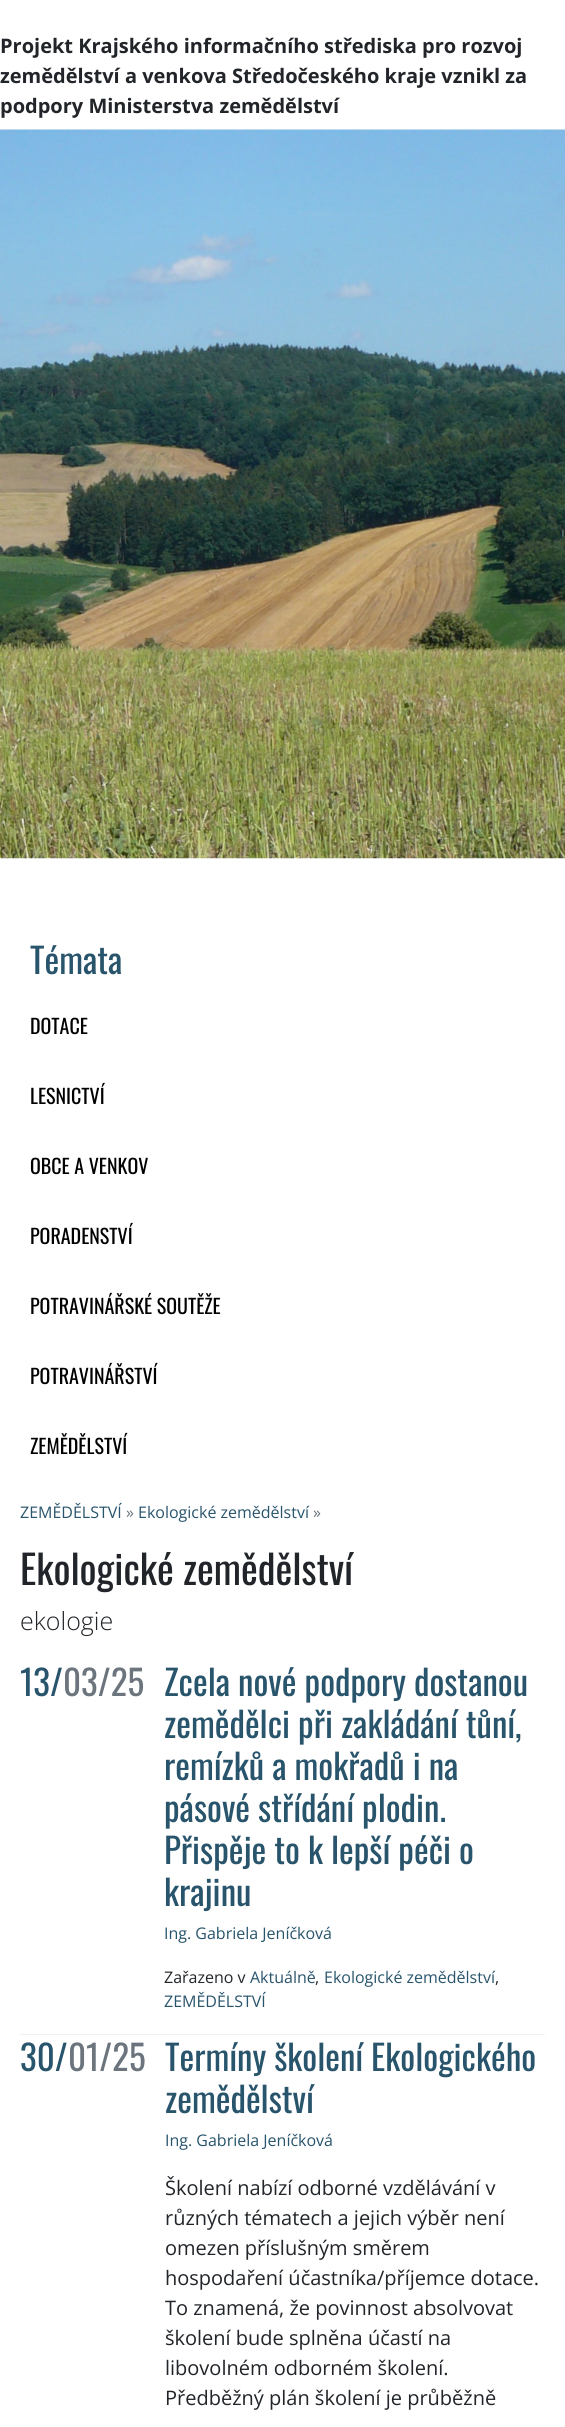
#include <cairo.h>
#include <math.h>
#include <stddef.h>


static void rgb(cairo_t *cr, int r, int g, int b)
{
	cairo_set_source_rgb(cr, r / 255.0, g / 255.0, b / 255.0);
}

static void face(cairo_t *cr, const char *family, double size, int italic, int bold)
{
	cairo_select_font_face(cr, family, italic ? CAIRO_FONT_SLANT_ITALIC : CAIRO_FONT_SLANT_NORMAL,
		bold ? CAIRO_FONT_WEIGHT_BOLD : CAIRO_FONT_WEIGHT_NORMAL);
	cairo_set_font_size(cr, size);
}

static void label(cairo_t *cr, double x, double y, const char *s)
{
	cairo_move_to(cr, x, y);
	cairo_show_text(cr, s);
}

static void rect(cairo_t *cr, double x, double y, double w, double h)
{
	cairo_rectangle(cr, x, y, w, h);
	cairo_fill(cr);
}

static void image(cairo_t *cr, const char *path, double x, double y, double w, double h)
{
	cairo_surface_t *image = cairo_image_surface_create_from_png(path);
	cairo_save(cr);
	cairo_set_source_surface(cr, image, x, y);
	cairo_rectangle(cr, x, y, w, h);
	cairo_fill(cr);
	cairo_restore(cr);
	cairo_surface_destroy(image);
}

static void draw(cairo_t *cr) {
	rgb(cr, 255, 255, 255);
	cairo_paint(cr);
	face(cr, "Open Sans", 20, 0, 1);
	rgb(cr, 33, 37, 41);
	label(cr, 0, 53, "Projekt Krajského informačního střediska pro rozvoj");
	label(cr, 0, 83, "zemědělství a venkova Středočeského kraje vznikl za");
	label(cr, 0, 113, "podpory Ministerstva zemědělství");
	image(cr, "image0.png", 0, 129, 565, 730);
	face(cr, "Oswald", 35, 0, 0);
	rgb(cr, 40, 84, 108);
	label(cr, 30, 974, "Témata");
	face(cr, "Oswald", 20, 0, 0);
	rgb(cr, 0, 0, 0);
	label(cr, 30, 1034, "DOTACE");
	label(cr, 30, 1104, "LESNICTVÍ");
	label(cr, 30, 1174, "OBCE A VENKOV");
	label(cr, 30, 1244, "PORADENSTVÍ");
	label(cr, 30, 1314, "POTRAVINÁŘSKÉ SOUTĚŽE");
	label(cr, 30, 1384, "POTRAVINÁŘSTVÍ");
	label(cr, 30, 1454, "ZEMĚDĚLSTVÍ");
	face(cr, "Open Sans", 16, 0, 0);
	rgb(cr, 40, 84, 108);
	label(cr, 20, 1518, "ZEMĚDĚLSTVÍ");
	rgb(cr, 108, 117, 125);
	label(cr, 126, 1518, "»");
	rgb(cr, 40, 84, 108);
	label(cr, 138, 1518, "Ekologické zemědělství");
	rgb(cr, 108, 117, 125);
	label(cr, 313, 1518, "»");
	face(cr, "Oswald", 40, 0, 0);
	rgb(cr, 33, 37, 41);
	label(cr, 20, 1585, "Ekologické zemědělství");
	face(cr, "Open Sans Light", 25, 0, 0);
	label(cr, 20, 1630, "ekologie");
	face(cr, "Oswald", 35, 0, 0);
	rgb(cr, 40, 84, 108);
	label(cr, 20, 1696, "13/");
	rgb(cr, 108, 117, 125);
	label(cr, 63, 1696, "03/25");
	rgb(cr, 40, 84, 108);
	label(cr, 164, 1696, "Zcela nové podpory dostanou");
	label(cr, 164, 1738, "zemědělci při zakládání tůní,");
	label(cr, 164, 1780, "remízků a mokřadů i na");
	label(cr, 164, 1822, "pásové střídání plodin.");
	label(cr, 164, 1864, "Přispěje to k lepší péči o");
	label(cr, 164, 1906, "krajinu");
	face(cr, "Open Sans", 16, 0, 0);
	label(cr, 164, 1939, "Ing. Gabriela Jeníčková");
	rgb(cr, 33, 37, 41);
	label(cr, 164, 1983, "Zařazeno v");
	rgb(cr, 40, 84, 108);
	label(cr, 250, 1983, "Aktuálně");
	rgb(cr, 33, 37, 41);
	label(cr, 315, 1983, ",");
	rgb(cr, 40, 84, 108);
	label(cr, 324, 1983, "Ekologické zemědělství");
	rgb(cr, 33, 37, 41);
	label(cr, 495, 1983, ",");
	rgb(cr, 40, 84, 108);
	label(cr, 164, 2007, "ZEMĚDĚLSTVÍ");
	rgb(cr, 240, 240, 240);
	rect(cr, 20, 2034, 525, 1);
	face(cr, "Oswald", 35, 0, 0);
	rgb(cr, 40, 84, 108);
	label(cr, 20, 2071, "30/");
	rgb(cr, 108, 117, 125);
	label(cr, 68, 2071, "01/25");
	rgb(cr, 40, 84, 108);
	label(cr, 165, 2071, "Termíny školení Ekologického");
	label(cr, 165, 2113, "zemědělství");
	face(cr, "Open Sans", 16, 0, 0);
	label(cr, 165, 2146, "Ing. Gabriela Jeníčková");
	face(cr, "Open Sans", 20, 0, 0);
	rgb(cr, 33, 37, 41);
	label(cr, 165, 2195, "Školení nabízí odborné vzdělávání v");
	label(cr, 165, 2225, "různých tématech a jejich výběr není");
	label(cr, 165, 2255, "omezen příslušným směrem");
	label(cr, 165, 2285, "hospodaření účastníka/příjemce dotace.");
	label(cr, 165, 2315, "To znamená, že povinnost absolvovat");
	label(cr, 165, 2345, "školení bude splněna účastí na");
	label(cr, 165, 2375, "libovolném odborném školení.");
	label(cr, 165, 2405, "Předběžný plán školení je průběžně");
}

int main(void) {
	cairo_surface_t *surface = cairo_image_surface_create(CAIRO_FORMAT_RGB24, 565, 2427);
	cairo_t *cr = cairo_create(surface);
	cairo_font_options_t *options = cairo_font_options_create();
	cairo_font_options_set_hint_metrics(options, CAIRO_HINT_METRICS_OFF);
	cairo_font_options_set_hint_style(options, CAIRO_HINT_STYLE_NONE);
	cairo_set_font_options(cr, options);
	cairo_set_miter_limit(cr, 4);
	draw(cr);
	cairo_surface_write_to_png(surface, "render.png");
	cairo_font_options_destroy(options);
	cairo_destroy(cr);
	cairo_surface_destroy(surface);
	return 0;
}
